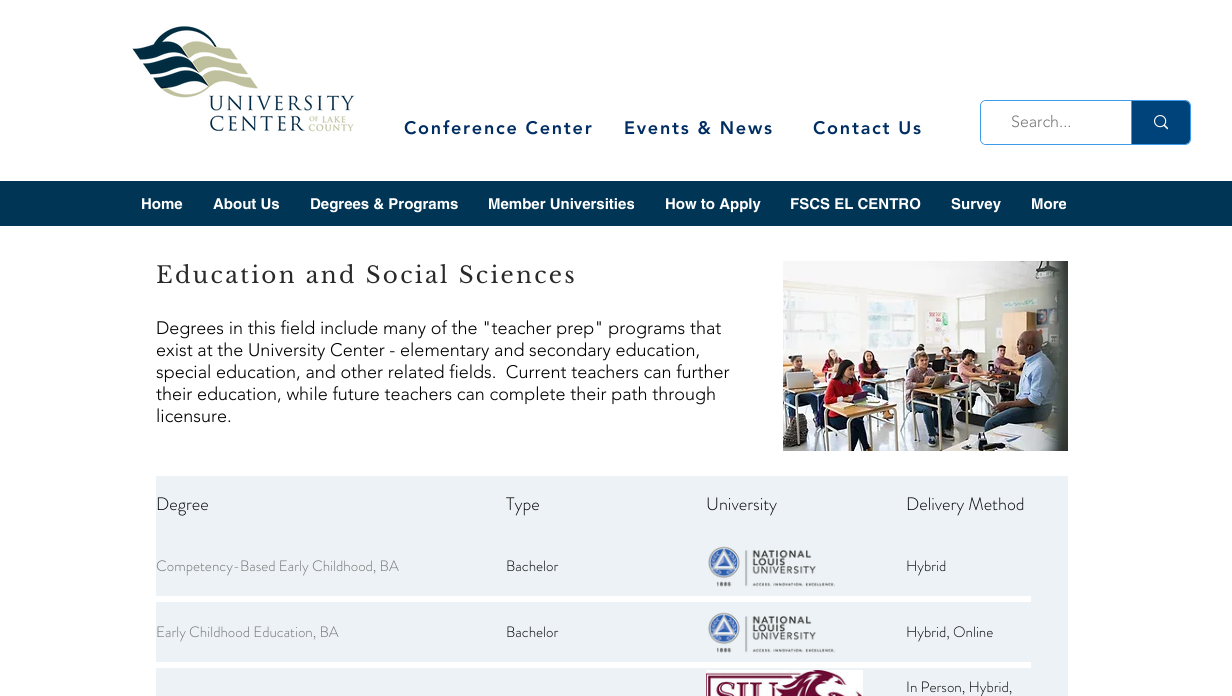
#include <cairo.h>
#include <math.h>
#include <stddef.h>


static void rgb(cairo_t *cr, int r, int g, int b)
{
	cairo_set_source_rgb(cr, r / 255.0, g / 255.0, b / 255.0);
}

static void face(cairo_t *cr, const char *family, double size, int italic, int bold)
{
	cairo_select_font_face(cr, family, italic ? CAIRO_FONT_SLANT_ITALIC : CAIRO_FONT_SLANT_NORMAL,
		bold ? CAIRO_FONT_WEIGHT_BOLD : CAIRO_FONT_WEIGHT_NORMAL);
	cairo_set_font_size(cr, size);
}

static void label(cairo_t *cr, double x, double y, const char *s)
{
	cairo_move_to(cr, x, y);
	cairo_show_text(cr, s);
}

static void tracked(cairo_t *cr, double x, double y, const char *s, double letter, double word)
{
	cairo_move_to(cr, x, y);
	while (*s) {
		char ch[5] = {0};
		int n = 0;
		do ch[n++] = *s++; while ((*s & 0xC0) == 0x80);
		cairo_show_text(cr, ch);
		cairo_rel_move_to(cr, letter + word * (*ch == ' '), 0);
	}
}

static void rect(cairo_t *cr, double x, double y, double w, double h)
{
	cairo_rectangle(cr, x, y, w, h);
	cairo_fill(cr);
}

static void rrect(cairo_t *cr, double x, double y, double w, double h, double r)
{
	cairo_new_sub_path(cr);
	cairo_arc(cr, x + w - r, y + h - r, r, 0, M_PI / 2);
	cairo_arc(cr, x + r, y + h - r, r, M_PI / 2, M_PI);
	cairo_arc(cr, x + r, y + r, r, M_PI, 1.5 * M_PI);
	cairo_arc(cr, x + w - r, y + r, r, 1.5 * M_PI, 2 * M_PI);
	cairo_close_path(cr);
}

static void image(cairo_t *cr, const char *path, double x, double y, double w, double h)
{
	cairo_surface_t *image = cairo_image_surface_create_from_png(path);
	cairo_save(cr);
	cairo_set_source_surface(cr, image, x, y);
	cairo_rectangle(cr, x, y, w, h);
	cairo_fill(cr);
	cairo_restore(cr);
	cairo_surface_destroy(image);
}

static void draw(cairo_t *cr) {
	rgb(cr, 255, 255, 255);
	cairo_paint(cr);
	image(cr, "image0.png", 132, 26, 223, 106);
	face(cr, "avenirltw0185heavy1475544 Black", 18, 0, 0);
	rgb(cr, 0, 45, 98);
	tracked(cr, 404, 134, "Conference Center", 1.75, 0);
	tracked(cr, 624, 134, "Events & News", 1.75, 0);
	tracked(cr, 813, 134, "Contact Us", 1.75, 0);
	rrect(cr, 980.5, 100.5, 210, 44, 5.5);
	rgb(cr, 61, 155, 233);
	cairo_set_line_width(cr, 1);
	cairo_stroke(cr);
	rgb(cr, 255, 255, 255);
	rrect(cr, 981, 101, 209, 43, 5);
	cairo_fill(cr);
	face(cr, "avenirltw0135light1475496 Light", 16, 0, 0);
	rgb(cr, 120, 120, 120);
	label(cr, 1011, 127, "Search...");
	rgb(cr, 0, 66, 122);
	cairo_new_path(cr);
	cairo_move_to(cr, 1131, 101);
	cairo_line_to(cr, 1185, 101);
	cairo_curve_to(cr, 1188, 101, 1190, 103, 1190, 106);
	cairo_line_to(cr, 1190, 139);
	cairo_curve_to(cr, 1190, 142, 1188, 144, 1185, 144);
	cairo_line_to(cr, 1131, 144);
	cairo_close_path(cr);
	cairo_fill(cr);
	rgb(cr, 61, 155, 233);
	rect(cr, 1131, 101, 1, 43);
	image(cr, "image1.png", 1154, 115, 14, 15);
	rgb(cr, 0, 53, 86);
	rect(cr, 0, 181, 1232, 45);
	face(cr, "helvetica", 15, 0, 1);
	rgb(cr, 255, 255, 255);
	label(cr, 141, 209, "Home");
	label(cr, 213, 209, "About Us");
	label(cr, 310, 209, "Degrees & Programs");
	label(cr, 488, 209, "Member Universities");
	label(cr, 665, 209, "How to Apply");
	label(cr, 790, 209, "FSCS EL CENTRO");
	label(cr, 951, 209, "Survey");
	label(cr, 1031, 209, "More");
	face(cr, "Libre Baskerville", 23, 0, 0);
	rgb(cr, 41, 41, 41);
	tracked(cr, 156, 283, "Education and Social Sciences", 2.3, 0);
	image(cr, "image2.png", 783, 261, 285, 190);
	face(cr, "avenirltw0135light1475496 Light", 18, 0, 0);
	rgb(cr, 0, 0, 0);
	label(cr, 156, 334, "Degrees in this field include many of the \"teacher prep\" programs that");
	label(cr, 156, 356, "exist at the University Center - elementary and secondary education,");
	label(cr, 156, 378, "special education, and other related fields.  Current teachers can further");
	label(cr, 156, 400, "their education, while future teachers can complete their path through");
	label(cr, 156, 422, "licensure.");
	rgb(cr, 236, 242, 245);
	rect(cr, 156, 476, 912, 220);
	face(cr, "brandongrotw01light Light", 18, 0, 0);
	rgb(cr, 0, 0, 0);
	label(cr, 156, 510, "Degree");
	label(cr, 506, 510, "Type");
	label(cr, 706, 510, "University");
	label(cr, 906, 510, "Delivery Method");
	rgb(cr, 255, 255, 255);
	rect(cr, 156, 596, 875, 6);
	face(cr, "brandongrotw01light Light", 15, 0, 0);
	rgb(cr, 114, 114, 114);
	label(cr, 156, 571, "Competency-Based Early Childhood, BA");
	rgb(cr, 0, 0, 0);
	label(cr, 506, 571, "Bachelor");
	image(cr, "image3.png", 708, 546, 127, 41);
	label(cr, 906, 571, "Hybrid");
	rgb(cr, 255, 255, 255);
	rect(cr, 156, 662, 875, 6);
	rgb(cr, 114, 114, 114);
	label(cr, 156, 637, "Early Childhood Education, BA");
	rgb(cr, 0, 0, 0);
	label(cr, 506, 637, "Bachelor");
	image(cr, "image4.png", 708, 612, 127, 41);
	label(cr, 906, 637, "Hybrid, Online");
	image(cr, "image5.png", 706, 670, 157, 26);
	label(cr, 906, 692, "In Person, Hybrid,");
}

int main(void) {
	cairo_surface_t *surface = cairo_image_surface_create(CAIRO_FORMAT_RGB24, 1232, 696);
	cairo_t *cr = cairo_create(surface);
	cairo_font_options_t *options = cairo_font_options_create();
	cairo_font_options_set_hint_metrics(options, CAIRO_HINT_METRICS_OFF);
	cairo_font_options_set_hint_style(options, CAIRO_HINT_STYLE_NONE);
	cairo_set_font_options(cr, options);
	cairo_set_miter_limit(cr, 4);
	draw(cr);
	cairo_surface_write_to_png(surface, "render.png");
	cairo_font_options_destroy(options);
	cairo_destroy(cr);
	cairo_surface_destroy(surface);
	return 0;
}
